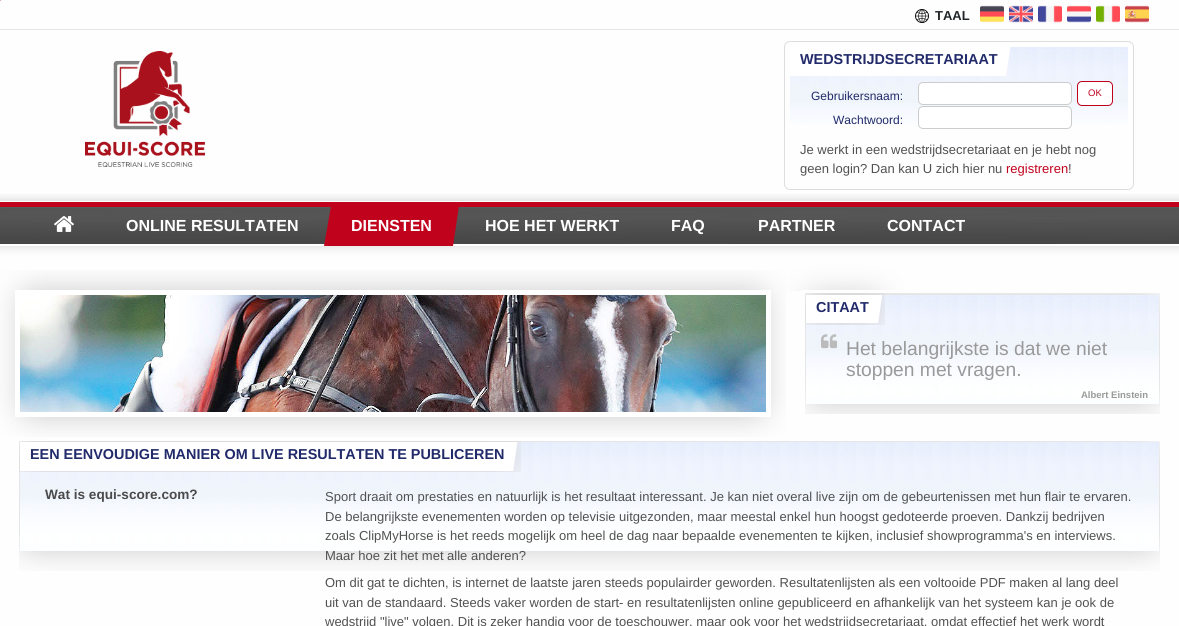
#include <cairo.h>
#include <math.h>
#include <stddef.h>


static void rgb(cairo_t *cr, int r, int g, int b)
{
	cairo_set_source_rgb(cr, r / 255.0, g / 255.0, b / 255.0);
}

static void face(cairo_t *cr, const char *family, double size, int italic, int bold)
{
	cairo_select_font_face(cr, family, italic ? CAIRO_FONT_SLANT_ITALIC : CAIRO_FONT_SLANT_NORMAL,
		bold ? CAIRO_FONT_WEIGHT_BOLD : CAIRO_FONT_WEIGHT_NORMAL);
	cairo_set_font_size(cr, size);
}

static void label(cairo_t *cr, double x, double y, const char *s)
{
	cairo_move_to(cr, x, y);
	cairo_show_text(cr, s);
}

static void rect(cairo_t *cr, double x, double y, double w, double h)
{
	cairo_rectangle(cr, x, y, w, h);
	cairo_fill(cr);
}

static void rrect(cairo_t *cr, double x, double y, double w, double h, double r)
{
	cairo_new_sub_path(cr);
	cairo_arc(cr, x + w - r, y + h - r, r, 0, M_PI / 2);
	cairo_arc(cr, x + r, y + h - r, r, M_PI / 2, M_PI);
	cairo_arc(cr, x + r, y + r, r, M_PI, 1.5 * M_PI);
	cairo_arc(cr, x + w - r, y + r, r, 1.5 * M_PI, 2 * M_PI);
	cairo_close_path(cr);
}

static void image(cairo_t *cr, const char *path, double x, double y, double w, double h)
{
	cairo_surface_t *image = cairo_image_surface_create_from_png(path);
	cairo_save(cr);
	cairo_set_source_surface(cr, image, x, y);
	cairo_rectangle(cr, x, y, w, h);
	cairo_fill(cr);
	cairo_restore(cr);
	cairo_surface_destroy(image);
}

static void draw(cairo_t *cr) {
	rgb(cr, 254, 254, 254);
	cairo_paint(cr);
	rgb(cr, 217, 172, 175);
	rect(cr, 0, 0, 1, 1);
	rgb(cr, 229, 229, 229);
	rect(cr, 0, 29, 1179, 1);
	image(cr, "image0.png", 915, 9, 14, 14);
	face(cr, "Liberation Sans", 13, 0, 1);
	rgb(cr, 33, 37, 41);
	label(cr, 935, 20, "TAAL");
	image(cr, "image1.png", 980, 5, 24, 18);
	image(cr, "image2.png", 1009, 5, 24, 18);
	image(cr, "image3.png", 1038, 5, 24, 18);
	image(cr, "image4.png", 1067, 5, 24, 18);
	image(cr, "image5.png", 1096, 5, 24, 18);
	image(cr, "image6.png", 1125, 5, 24, 18);
	image(cr, "image7.png", 85, 51, 120, 116);
	rrect(cr, 784.5, 41.5, 349, 148, 5.5);
	rgb(cr, 221, 221, 221);
	cairo_set_line_width(cr, 1);
	cairo_stroke(cr);
	image(cr, "image9.png", 790, 47, 338, 77);
	image(cr, "image8.png", 790, 47, 221, 29);
	face(cr, "Liberation Sans", 14.4, 0, 1);
	rgb(cr, 33, 42, 106);
	label(cr, 800, 64, "WEDSTRIJDSECRETARIAAT");
	face(cr, "Liberation Sans", 12, 0, 0);
	label(cr, 811, 100, "Gebruikersnaam:");
	rgb(cr, 255, 255, 255);
	rrect(cr, 918.5, 82.5, 153, 22, 4.5);
	cairo_fill_preserve(cr);
	rgb(cr, 204, 204, 204);
	cairo_stroke(cr);
	rgb(cr, 255, 255, 255);
	rrect(cr, 1077.5, 81.5, 35, 24, 4.5);
	cairo_fill_preserve(cr);
	rgb(cr, 193, 2, 29);
	cairo_stroke(cr);
	face(cr, "Liberation Sans", 9.5, 0, 0);
	label(cr, 1088, 96, "OK");
	face(cr, "Liberation Sans", 12, 0, 0);
	rgb(cr, 33, 42, 106);
	label(cr, 833, 124, "Wachtwoord:");
	rgb(cr, 255, 255, 255);
	rrect(cr, 918.5, 106.5, 153, 22, 4.5);
	cairo_fill_preserve(cr);
	rgb(cr, 204, 204, 204);
	cairo_stroke(cr);
	face(cr, "Liberation Sans", 13, 0, 0);
	rgb(cr, 81, 81, 81);
	label(cr, 800, 154, "Je werkt in een wedstrijdsecretariaat en je hebt nog");
	label(cr, 800, 173, "geen login? Dan kan U zich hier nu");
	rgb(cr, 193, 2, 29);
	label(cr, 1006, 173, "registreren");
	rgb(cr, 81, 81, 81);
	label(cr, 1068, 173, "!");
	image(cr, "image10.png", 0, 194, 1179, 97);
	image(cr, "image11.png", 54, 216, 20, 16);
	face(cr, "Liberation Sans", 16, 0, 1);
	rgb(cr, 255, 255, 255);
	label(cr, 126, 231, "ONLINE RESULTATEN");
	rgb(cr, 193, 2, 29);
	cairo_new_path(cr);
	cairo_move_to(cr, 331, 206);
	cairo_line_to(cr, 459, 206);
	cairo_line_to(cr, 453, 246);
	cairo_line_to(cr, 324, 246);
	cairo_close_path(cr);
	cairo_fill(cr);
	rgb(cr, 255, 255, 255);
	label(cr, 351, 231, "DIENSTEN");
	label(cr, 485, 231, "HOE HET WERKT");
	label(cr, 671, 231, "FAQ");
	label(cr, 758, 231, "PARTNER");
	label(cr, 887, 231, "CONTACT");
	image(cr, "image12.png", 0, 270, 786, 167);
	cairo_rectangle(cr, 17.5, 292.5, 751, 122);
	cairo_set_line_width(cr, 5);
	cairo_stroke(cr);
	rect(cr, 801, 290, 100, 1);
	image(cr, "image14.png", 805, 293, 355, 121);
	image(cr, "image13.png", 805, 293, 80, 32);
	face(cr, "Liberation Sans", 14.4, 0, 1);
	rgb(cr, 33, 42, 106);
	label(cr, 816, 312, "CITAAT");
	image(cr, "image15.png", 821, 334, 16, 15);
	face(cr, "Liberation Sans", 19.25, 0, 0);
	rgb(cr, 153, 153, 153);
	label(cr, 846, 355, "Het belangrijkste is dat we niet");
	label(cr, 846, 376, "stoppen met vragen.");
	face(cr, "Liberation Sans", 9.5, 0, 1);
	label(cr, 1081, 398, "Albert Einstein");
	image(cr, "image17.png", 19, 441, 1141, 130);
	image(cr, "image16.png", 19, 441, 502, 31);
	face(cr, "Liberation Sans", 14.4, 0, 1);
	rgb(cr, 33, 42, 106);
	label(cr, 30, 459, "EEN EENVOUDIGE MANIER OM LIVE RESULTATEN TE PUBLICEREN");
	face(cr, "Liberation Sans", 13.6, 0, 1);
	rgb(cr, 74, 74, 74);
	label(cr, 45, 499, "Wat is equi-score.com?");
	face(cr, "Liberation Sans", 13, 0, 0);
	rgb(cr, 81, 81, 81);
	label(cr, 325, 501, "Sport draait om prestaties en natuurlijk is het resultaat interessant. Je kan niet overal live zijn om de gebeurtenissen met hun flair te ervaren.");
	label(cr, 325, 521, "De belangrijkste evenementen worden op televisie uitgezonden, maar meestal enkel hun hoogst gedoteerde proeven. Dankzij bedrijven");
	label(cr, 325, 540, "zoals ClipMyHorse is het reeds mogelijk om heel de dag naar bepaalde evenementen te kijken, inclusief showprogramma's en interviews.");
	label(cr, 325, 560, "Maar hoe zit het met alle anderen?");
	label(cr, 325, 587, "Om dit gat te dichten, is internet de laatste jaren steeds populairder geworden. Resultatenlijsten als een voltooide PDF maken al lang deel");
	label(cr, 325, 607, "uit van de standaard. Steeds vaker worden de start- en resultatenlijsten online gepubliceerd en afhankelijk van het systeem kan je ook de");
	label(cr, 325, 626, "wedstrijd \"live\" volgen. Dit is zeker handig voor de toeschouwer, maar ook voor het wedstrijdsecretariaat, omdat effectief het werk wordt");
}

int main(void) {
	cairo_surface_t *surface = cairo_image_surface_create(CAIRO_FORMAT_RGB24, 1179, 626);
	cairo_t *cr = cairo_create(surface);
	cairo_font_options_t *options = cairo_font_options_create();
	cairo_font_options_set_hint_metrics(options, CAIRO_HINT_METRICS_OFF);
	cairo_font_options_set_hint_style(options, CAIRO_HINT_STYLE_NONE);
	cairo_set_font_options(cr, options);
	cairo_set_miter_limit(cr, 4);
	draw(cr);
	cairo_surface_write_to_png(surface, "render.png");
	cairo_font_options_destroy(options);
	cairo_destroy(cr);
	cairo_surface_destroy(surface);
	return 0;
}
